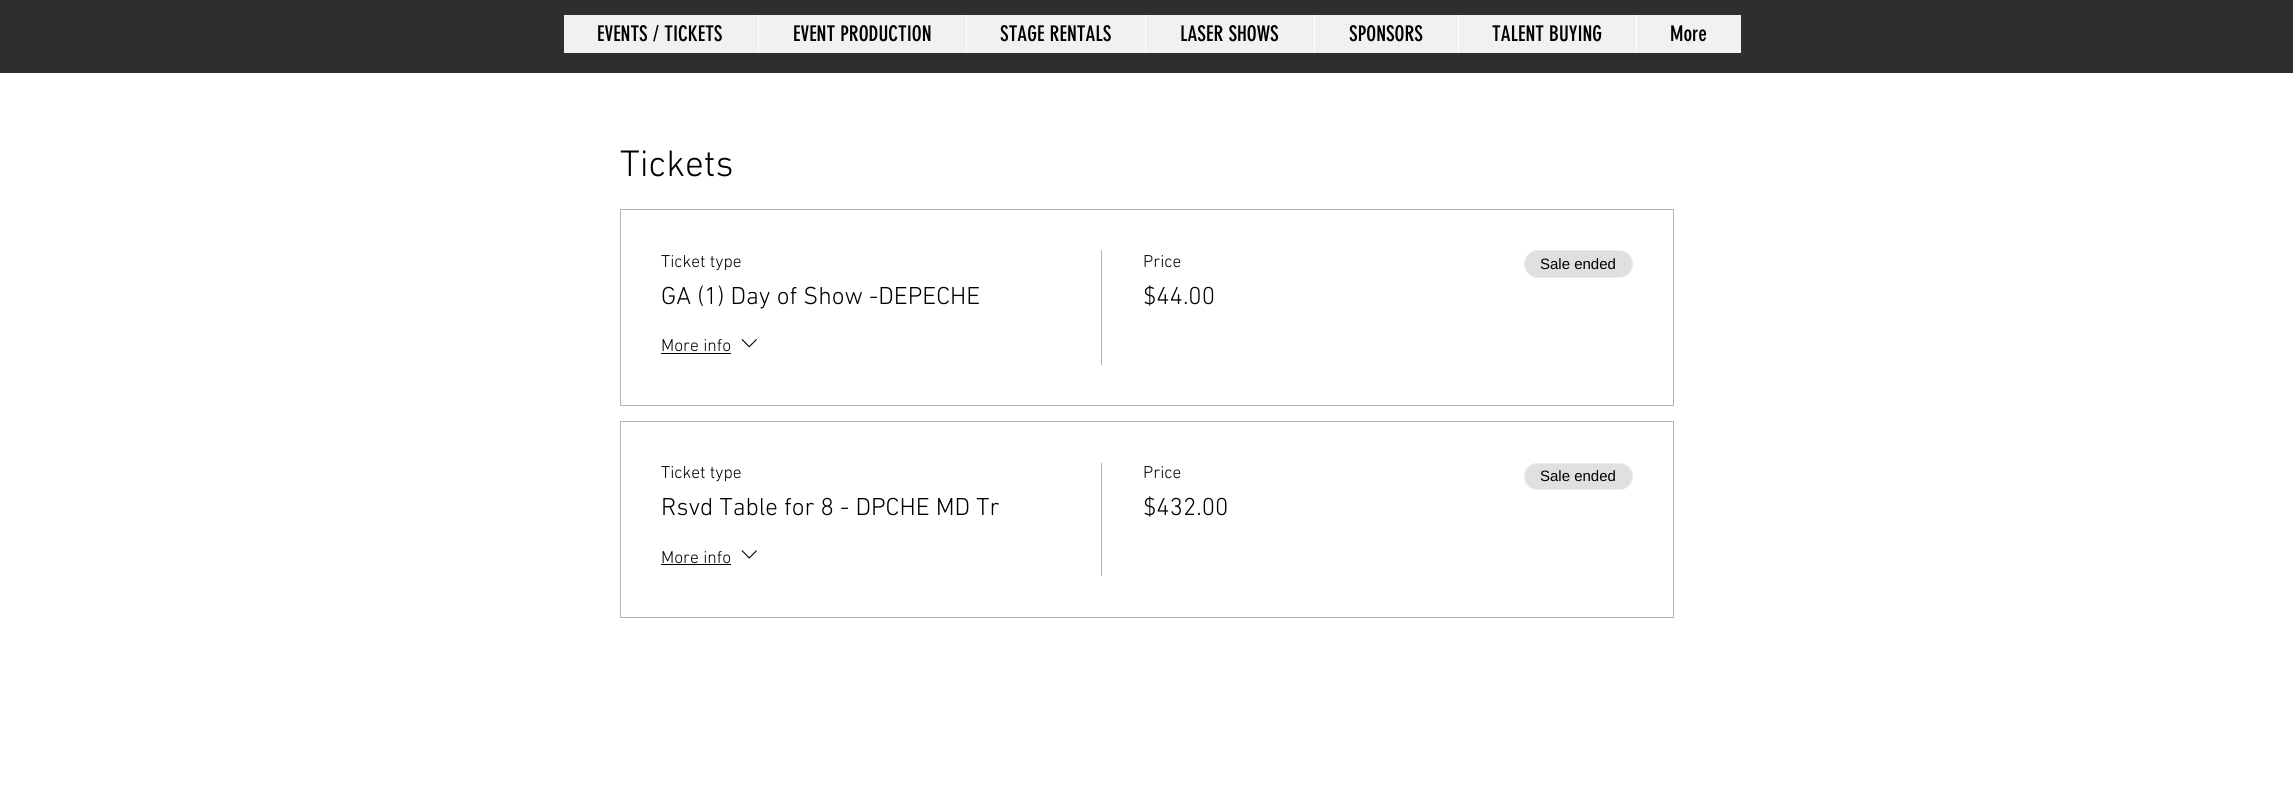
#include <cairo.h>
#include <math.h>
#include <stddef.h>


static void rgb(cairo_t *cr, int r, int g, int b)
{
	cairo_set_source_rgb(cr, r / 255.0, g / 255.0, b / 255.0);
}

static void face(cairo_t *cr, const char *family, double size, int italic, int bold)
{
	cairo_select_font_face(cr, family, italic ? CAIRO_FONT_SLANT_ITALIC : CAIRO_FONT_SLANT_NORMAL,
		bold ? CAIRO_FONT_WEIGHT_BOLD : CAIRO_FONT_WEIGHT_NORMAL);
	cairo_set_font_size(cr, size);
}

static void label(cairo_t *cr, double x, double y, const char *s)
{
	cairo_move_to(cr, x, y);
	cairo_show_text(cr, s);
}

static void rect(cairo_t *cr, double x, double y, double w, double h)
{
	cairo_rectangle(cr, x, y, w, h);
	cairo_fill(cr);
}

static void rrect(cairo_t *cr, double x, double y, double w, double h, double r)
{
	cairo_new_sub_path(cr);
	cairo_arc(cr, x + w - r, y + h - r, r, 0, M_PI / 2);
	cairo_arc(cr, x + r, y + h - r, r, M_PI / 2, M_PI);
	cairo_arc(cr, x + r, y + r, r, M_PI, 1.5 * M_PI);
	cairo_arc(cr, x + w - r, y + r, r, 1.5 * M_PI, 2 * M_PI);
	cairo_close_path(cr);
}

static void image(cairo_t *cr, const char *path, double x, double y, double w, double h)
{
	cairo_surface_t *image = cairo_image_surface_create_from_png(path);
	cairo_save(cr);
	cairo_set_source_surface(cr, image, x, y);
	cairo_rectangle(cr, x, y, w, h);
	cairo_fill(cr);
	cairo_restore(cr);
	cairo_surface_destroy(image);
}

static void draw(cairo_t *cr) {
	rgb(cr, 255, 255, 255);
	cairo_paint(cr);
	rgb(cr, 47, 46, 46);
	rect(cr, 0, 0, 2293, 73);
	rgb(cr, 241, 241, 241);
	rect(cr, 564, 15, 1177, 38);
	face(cr, "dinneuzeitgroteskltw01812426", 21.25, 0, 0);
	rgb(cr, 0, 0, 0);
	label(cr, 597, 41, "EVENTS / TICKETS");
	rgb(cr, 255, 255, 255);
	rect(cr, 758, 15, 1, 38);
	rgb(cr, 0, 0, 0);
	label(cr, 793, 41, "EVENT PRODUCTION");
	rgb(cr, 255, 255, 255);
	rect(cr, 966, 15, 1, 38);
	rgb(cr, 0, 0, 0);
	label(cr, 1000, 41, "STAGE RENTALS");
	rgb(cr, 255, 255, 255);
	rect(cr, 1145, 15, 1, 38);
	rgb(cr, 0, 0, 0);
	label(cr, 1180, 41, "LASER SHOWS");
	rgb(cr, 255, 255, 255);
	rect(cr, 1314, 15, 1, 38);
	rgb(cr, 0, 0, 0);
	label(cr, 1349, 41, "SPONSORS");
	rgb(cr, 255, 255, 255);
	rect(cr, 1458, 15, 1, 38);
	rgb(cr, 0, 0, 0);
	label(cr, 1492, 41, "TALENT BUYING");
	rgb(cr, 255, 255, 255);
	rect(cr, 1636, 15, 1, 38);
	rgb(cr, 0, 0, 0);
	label(cr, 1670, 41, "More");
	face(cr, "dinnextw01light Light", 37.5, 0, 0);
	label(cr, 620, 176, "Tickets");
	cairo_rectangle(cr, 620.5, 209.5, 1053, 196);
	rgb(cr, 179, 179, 179);
	cairo_set_line_width(cr, 1);
	cairo_stroke(cr);
	face(cr, "dinnextw01light Light", 17.5, 0, 0);
	rgb(cr, 0, 0, 0);
	label(cr, 661, 267, "Ticket type");
	face(cr, "dinnextw01light Light", 25, 0, 0);
	label(cr, 661, 304, "GA (1) Day of Show -DEPECHE");
	face(cr, "dinnextw01light Light", 17.5, 0, 0);
	label(cr, 661, 351, "More info");
	rect(cr, 661, 353, 70, 1);
	image(cr, "image0.png", 741, 339, 16, 9);
	rgb(cr, 179, 179, 179);
	rect(cr, 1101, 250, 1, 115);
	rgb(cr, 0, 0, 0);
	label(cr, 1143, 267, "Price");
	face(cr, "dinnextw01light Light", 25, 0, 0);
	label(cr, 1143, 304, "$44.00");
	rgb(cr, 224, 224, 224);
	rrect(cr, 1524, 250, 109, 28, 14);
	cairo_fill(cr);
	rrect(cr, 1524.5, 250.5, 108, 27, 13.5);
	cairo_set_source_rgba(cr, 1, 1, 1, 0.4);
	cairo_stroke(cr);
	face(cr, "Liberation Sans", 15, 0, 0);
	rgb(cr, 0, 0, 0);
	label(cr, 1540, 269, "Sale ended");
	cairo_rectangle(cr, 620.5, 421.5, 1053, 196);
	rgb(cr, 179, 179, 179);
	cairo_stroke(cr);
	face(cr, "dinnextw01light Light", 17.5, 0, 0);
	rgb(cr, 0, 0, 0);
	label(cr, 661, 478, "Ticket type");
	face(cr, "dinnextw01light Light", 25, 0, 0);
	label(cr, 661, 515, "Rsvd Table for 8 - DPCHE MD Tr");
	face(cr, "dinnextw01light Light", 17.5, 0, 0);
	label(cr, 661, 563, "More info");
	rect(cr, 661, 564, 70, 1);
	image(cr, "image1.png", 741, 550, 16, 9);
	rgb(cr, 179, 179, 179);
	rect(cr, 1101, 463, 1, 113);
	rgb(cr, 0, 0, 0);
	label(cr, 1143, 478, "Price");
	face(cr, "dinnextw01light Light", 25, 0, 0);
	label(cr, 1143, 515, "$432.00");
	rgb(cr, 224, 224, 224);
	rrect(cr, 1524, 463, 109, 27, 13.5);
	cairo_fill(cr);
	rrect(cr, 1524.5, 463.5, 108, 26, 13);
	cairo_set_source_rgba(cr, 1, 1, 1, 0.4);
	cairo_stroke(cr);
	face(cr, "Liberation Sans", 15, 0, 0);
	rgb(cr, 0, 0, 0);
	label(cr, 1540, 481, "Sale ended");
}

int main(void) {
	cairo_surface_t *surface = cairo_image_surface_create(CAIRO_FORMAT_RGB24, 2293, 800);
	cairo_t *cr = cairo_create(surface);
	cairo_font_options_t *options = cairo_font_options_create();
	cairo_font_options_set_hint_metrics(options, CAIRO_HINT_METRICS_OFF);
	cairo_font_options_set_hint_style(options, CAIRO_HINT_STYLE_NONE);
	cairo_set_font_options(cr, options);
	cairo_set_miter_limit(cr, 4);
	draw(cr);
	cairo_surface_write_to_png(surface, "render.png");
	cairo_font_options_destroy(options);
	cairo_destroy(cr);
	cairo_surface_destroy(surface);
	return 0;
}
